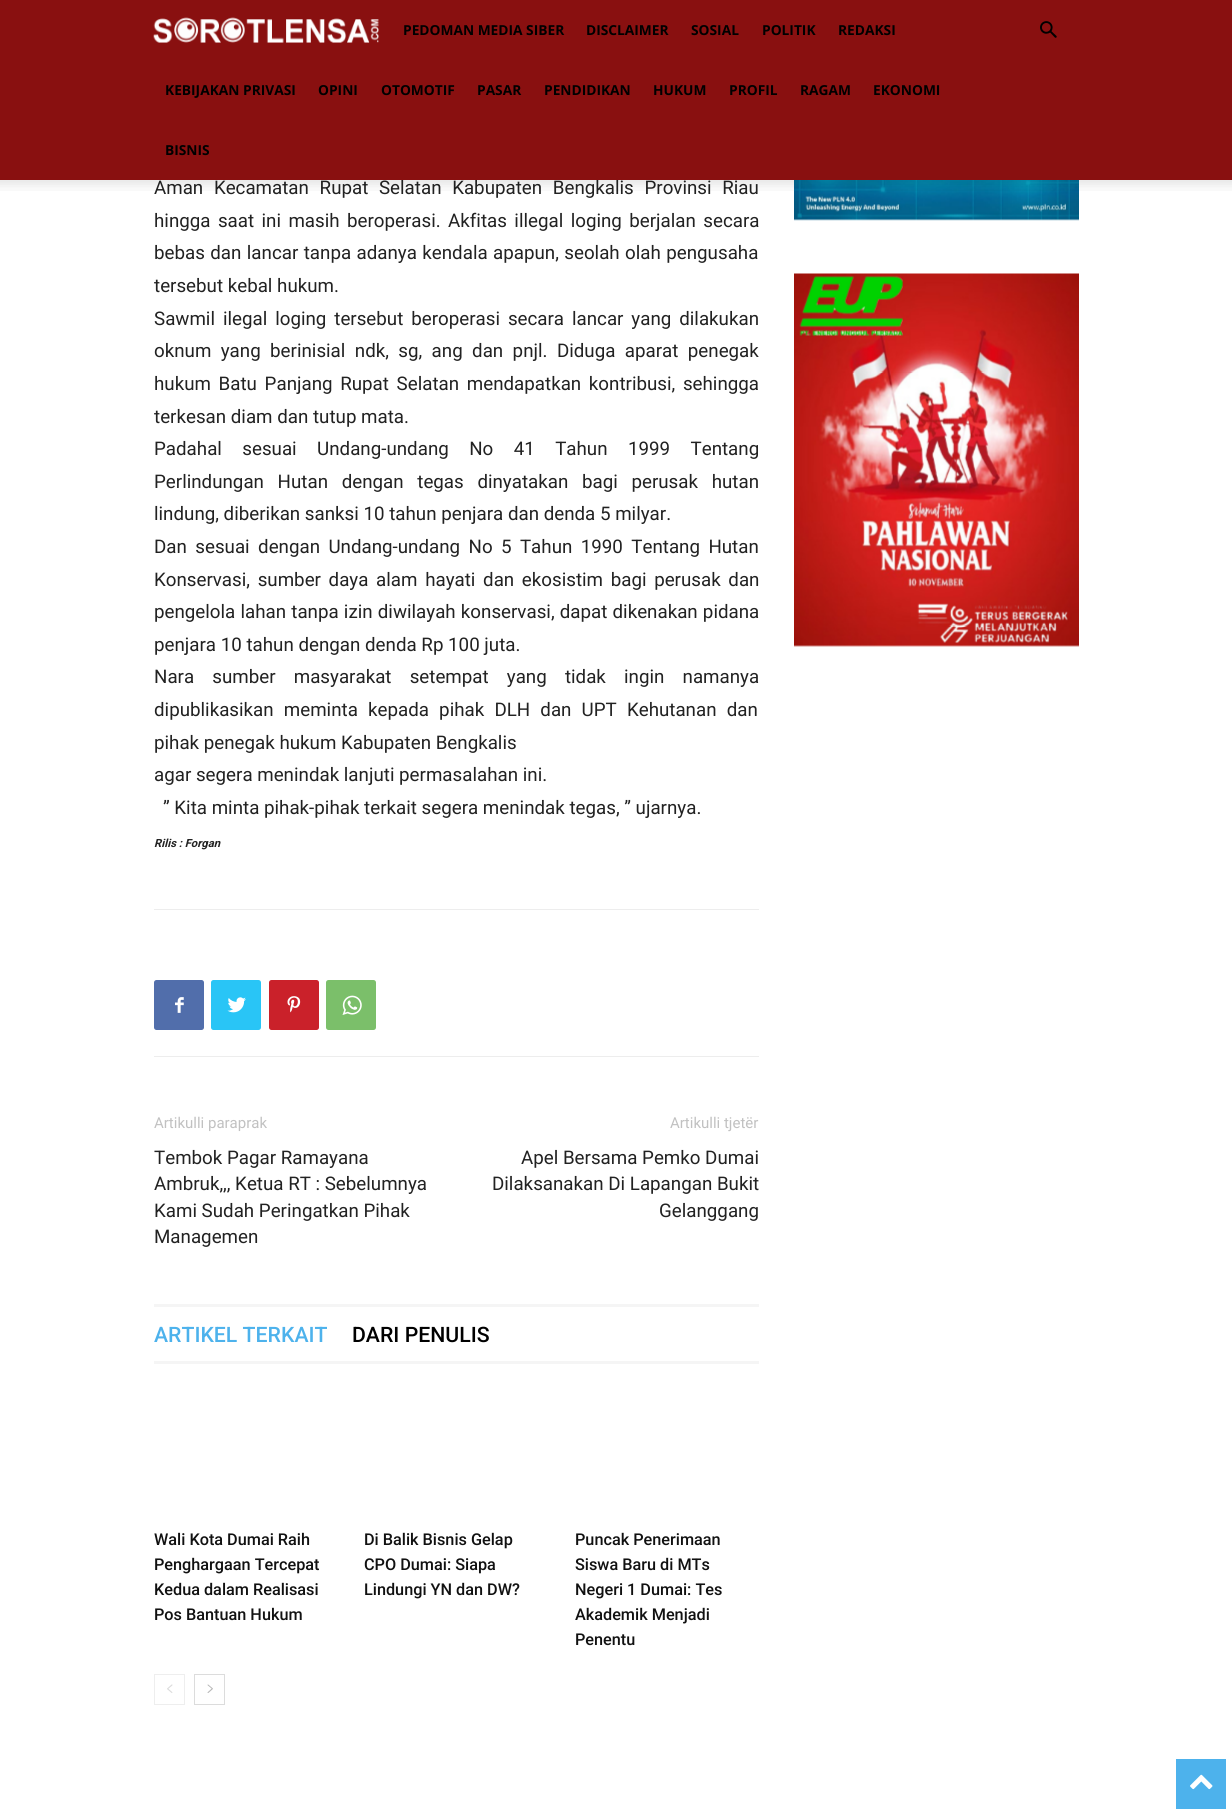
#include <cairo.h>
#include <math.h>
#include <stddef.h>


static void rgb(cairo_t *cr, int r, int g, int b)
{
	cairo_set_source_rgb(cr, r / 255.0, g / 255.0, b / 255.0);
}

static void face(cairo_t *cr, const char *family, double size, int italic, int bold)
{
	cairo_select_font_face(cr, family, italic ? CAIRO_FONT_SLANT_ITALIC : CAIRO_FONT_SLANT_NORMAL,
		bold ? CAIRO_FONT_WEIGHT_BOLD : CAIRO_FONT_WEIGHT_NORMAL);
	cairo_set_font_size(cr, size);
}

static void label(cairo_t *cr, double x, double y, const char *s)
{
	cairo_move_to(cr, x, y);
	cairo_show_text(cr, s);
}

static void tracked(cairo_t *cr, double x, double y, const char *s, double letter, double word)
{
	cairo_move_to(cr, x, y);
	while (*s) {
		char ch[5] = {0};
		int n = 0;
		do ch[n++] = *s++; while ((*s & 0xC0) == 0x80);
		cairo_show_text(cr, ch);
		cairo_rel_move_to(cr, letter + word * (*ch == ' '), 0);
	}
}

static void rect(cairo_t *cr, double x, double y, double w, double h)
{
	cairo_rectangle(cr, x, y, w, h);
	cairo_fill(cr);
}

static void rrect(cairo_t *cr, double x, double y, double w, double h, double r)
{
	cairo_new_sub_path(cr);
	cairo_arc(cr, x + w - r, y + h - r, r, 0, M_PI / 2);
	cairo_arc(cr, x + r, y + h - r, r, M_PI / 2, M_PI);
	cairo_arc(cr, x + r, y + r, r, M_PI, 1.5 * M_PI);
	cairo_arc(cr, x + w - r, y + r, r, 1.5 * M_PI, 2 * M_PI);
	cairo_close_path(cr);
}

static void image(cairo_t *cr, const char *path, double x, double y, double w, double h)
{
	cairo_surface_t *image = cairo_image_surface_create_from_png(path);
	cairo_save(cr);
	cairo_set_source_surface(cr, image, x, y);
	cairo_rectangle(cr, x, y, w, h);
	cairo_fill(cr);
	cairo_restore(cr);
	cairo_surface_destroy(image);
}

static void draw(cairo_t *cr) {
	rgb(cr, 255, 255, 255);
	cairo_paint(cr);
	face(cr, "Roboto", 18.75, 0, 0);
	rgb(cr, 34, 34, 34);
	tracked(cr, 154, 194, "Aman Kecamatan Rupat Selatan Kabupaten Bengkalis Provinsi Riau", 0, 6);
	rgb(cr, 137, 16, 16);
	rect(cr, 0, 0, 1232, 180);
	image(cr, "image0.png", 153, 17, 226, 26);
	face(cr, "Open Sans", 13.75, 0, 1);
	rgb(cr, 0, 0, 0);
	label(cr, 403, 35, "PEDOMAN MEDIA SIBER");
	label(cr, 586, 35, "DISCLAIMER");
	label(cr, 691, 35, "SOSIAL");
	label(cr, 762, 35, "POLITIK");
	label(cr, 838, 35, "REDAKSI");
	label(cr, 165, 95, "KEBIJAKAN PRIVASI");
	label(cr, 318, 95, "OPINI");
	label(cr, 381, 95, "OTOMOTIF");
	label(cr, 477, 95, "PASAR");
	label(cr, 544, 95, "PENDIDIKAN");
	label(cr, 653, 95, "HUKUM");
	label(cr, 729, 95, "PROFIL");
	label(cr, 800, 95, "RAGAM");
	label(cr, 873, 95, "EKONOMI");
	label(cr, 165, 155, "BISNIS");
	image(cr, "image1.png", 1040, 21, 17, 17);
	image(cr, "image9.png", 794, 180, 285, 41);
	image(cr, "image2.png", 0, 180, 1232, 11);
	face(cr, "Roboto", 18.75, 0, 0);
	rgb(cr, 34, 34, 34);
	tracked(cr, 154, 227, "hingga saat ini masih beroperasi. Akfitas illegal loging berjalan secara", 0, 2.75);
	tracked(cr, 154, 259, "bebas dan lancar tanpa adanya kendala apapun, seolah olah pengusaha", 0, 0.75);
	label(cr, 154, 292, "tersebut kebal hukum.");
	tracked(cr, 154, 325, "Sawmil ilegal loging tersebut beroperasi secara lancar yang dilakukan", 0, 3.25);
	tracked(cr, 154, 357, "oknum yang berinisial ndk, sg, ang dan pnjl. Diduga aparat penegak", 0, 4.75);
	tracked(cr, 154, 390, "hukum Batu Panjang Rupat Selatan mendapatkan kontribusi, sehingga", 0, 3);
	label(cr, 154, 423, "terkesan diam dan tutup mata.");
	tracked(cr, 154, 455, "Padahal sesuai Undang-undang No 41 Tahun 1999 Tentang", 0, 15.75);
	tracked(cr, 154, 488, "Perlindungan Hutan dengan tegas dinyatakan bagi perusak hutan", 0, 9);
	label(cr, 154, 520, "lindung, diberikan sanksi 10 tahun penjara dan denda 5 milyar.");
	tracked(cr, 154, 553, "Dan sesuai dengan Undang-undang No 5 Tahun 1990 Tentang Hutan", 0, 3.75);
	tracked(cr, 154, 586, "Konservasi, sumber daya alam hayati dan ekosistim bagi perusak dan", 0, 3);
	tracked(cr, 154, 618, "pengelola lahan tanpa izin diwilayah konservasi, dapat dikenakan pidana", 0, 0.5);
	label(cr, 154, 651, "penjara 10 tahun dengan denda Rp 100 juta.");
	tracked(cr, 154, 683, "Nara sumber masyarakat setempat yang tidak ingin namanya", 0, 13.5);
	tracked(cr, 154, 716, "dipublikasikan meminta kepada pihak DLH dan UPT Kehutanan dan", 0, 5.5);
	label(cr, 154, 749, "pihak penegak hukum Kabupaten Bengkalis");
	label(cr, 154, 781, "agar segera menindak lanjuti permasalahan ini.");
	label(cr, 163, 814, "” Kita minta pihak-pihak terkait segera menindak tegas, ” ujarnya.");
	face(cr, "Roboto", 11.25, 1, 1);
	label(cr, 154, 847, "Rilis : Forgan");
	rgb(cr, 237, 237, 237);
	rect(cr, 154, 909, 605, 1);
	rect(cr, 154, 1056, 605, 1);
	rgb(cr, 81, 110, 171);
	rrect(cr, 154, 980, 50, 50, 2.5);
	cairo_fill(cr);
	image(cr, "image3.png", 175, 997, 9, 16);
	rgb(cr, 41, 197, 246);
	rrect(cr, 211, 980, 50, 50, 2.5);
	cairo_fill(cr);
	image(cr, "image4.png", 227, 997, 19, 16);
	rgb(cr, 202, 33, 42);
	rrect(cr, 269, 980, 50, 50, 2.5);
	cairo_fill(cr);
	image(cr, "image5.png", 287, 996, 14, 17);
	rgb(cr, 123, 191, 106);
	rrect(cr, 326, 980, 50, 50, 2.5);
	cairo_fill(cr);
	image(cr, "image6.png", 342, 995, 20, 20);
	face(cr, "Roboto", 15, 0, 0);
	rgb(cr, 193, 193, 193);
	label(cr, 154, 1128, "Artikulli paraprak");
	face(cr, "Roboto", 18.75, 0, 0);
	rgb(cr, 34, 34, 34);
	label(cr, 154, 1164, "Tembok Pagar Ramayana");
	label(cr, 154, 1190, "Ambruk,,, Ketua RT : Sebelumnya");
	label(cr, 154, 1217, "Kami Sudah Peringatkan Pihak");
	label(cr, 154, 1243, "Managemen");
	face(cr, "Roboto", 15, 0, 0);
	rgb(cr, 193, 193, 193);
	label(cr, 670, 1128, "Artikulli tjetër");
	face(cr, "Roboto", 18.75, 0, 0);
	rgb(cr, 34, 34, 34);
	label(cr, 521, 1164, "Apel Bersama Pemko Dumai");
	label(cr, 492, 1190, "Dilaksanakan Di Lapangan Bukit");
	label(cr, 659, 1217, "Gelanggang");
	rgb(cr, 245, 245, 245);
	rect(cr, 154, 1304, 605, 3);
	face(cr, "Roboto Medium", 21.25, 0, 0);
	rgb(cr, 77, 178, 236);
	label(cr, 154, 1342, "ARTIKEL TERKAIT");
	rgb(cr, 0, 0, 0);
	label(cr, 352, 1342, "DARI PENULIS");
	rgb(cr, 245, 245, 245);
	rect(cr, 154, 1361, 605, 3);
	face(cr, "Roboto Medium", 16.25, 0, 0);
	rgb(cr, 17, 17, 17);
	label(cr, 154, 1545, "Wali Kota Dumai Raih");
	label(cr, 154, 1570, "Penghargaan Tercepat");
	label(cr, 154, 1595, "Kedua dalam Realisasi");
	label(cr, 154, 1620, "Pos Bantuan Hukum");
	label(cr, 364, 1545, "Di Balik Bisnis Gelap");
	label(cr, 364, 1570, "CPO Dumai: Siapa");
	label(cr, 364, 1595, "Lindungi YN dan DW?");
	label(cr, 575, 1545, "Puncak Penerimaan");
	label(cr, 575, 1570, "Siswa Baru di MTs");
	label(cr, 575, 1595, "Negeri 1 Dumai: Tes");
	label(cr, 575, 1620, "Akademik Menjadi");
	label(cr, 575, 1645, "Penentu");
	cairo_rectangle(cr, 154.5, 1674.5, 30, 30);
	rgb(cr, 238, 238, 238);
	cairo_set_line_width(cr, 1);
	cairo_stroke(cr);
	image(cr, "image7.png", 167, 1684, 6, 9);
	cairo_rectangle(cr, 194.5, 1674.5, 30, 30);
	rgb(cr, 220, 220, 220);
	cairo_stroke(cr);
	image(cr, "image8.png", 207, 1684, 6, 9);
	image(cr, "image10.png", 794, 273, 285, 374);
	rgb(cr, 77, 178, 236);
	rect(cr, 1176, 1759, 50, 50);
	image(cr, "image11.png", 1190, 1774, 23, 16);
}

int main(void) {
	cairo_surface_t *surface = cairo_image_surface_create(CAIRO_FORMAT_RGB24, 1232, 1813);
	cairo_t *cr = cairo_create(surface);
	cairo_font_options_t *options = cairo_font_options_create();
	cairo_font_options_set_hint_metrics(options, CAIRO_HINT_METRICS_OFF);
	cairo_font_options_set_hint_style(options, CAIRO_HINT_STYLE_NONE);
	cairo_set_font_options(cr, options);
	cairo_set_miter_limit(cr, 4);
	draw(cr);
	cairo_surface_write_to_png(surface, "render.png");
	cairo_font_options_destroy(options);
	cairo_destroy(cr);
	cairo_surface_destroy(surface);
	return 0;
}
